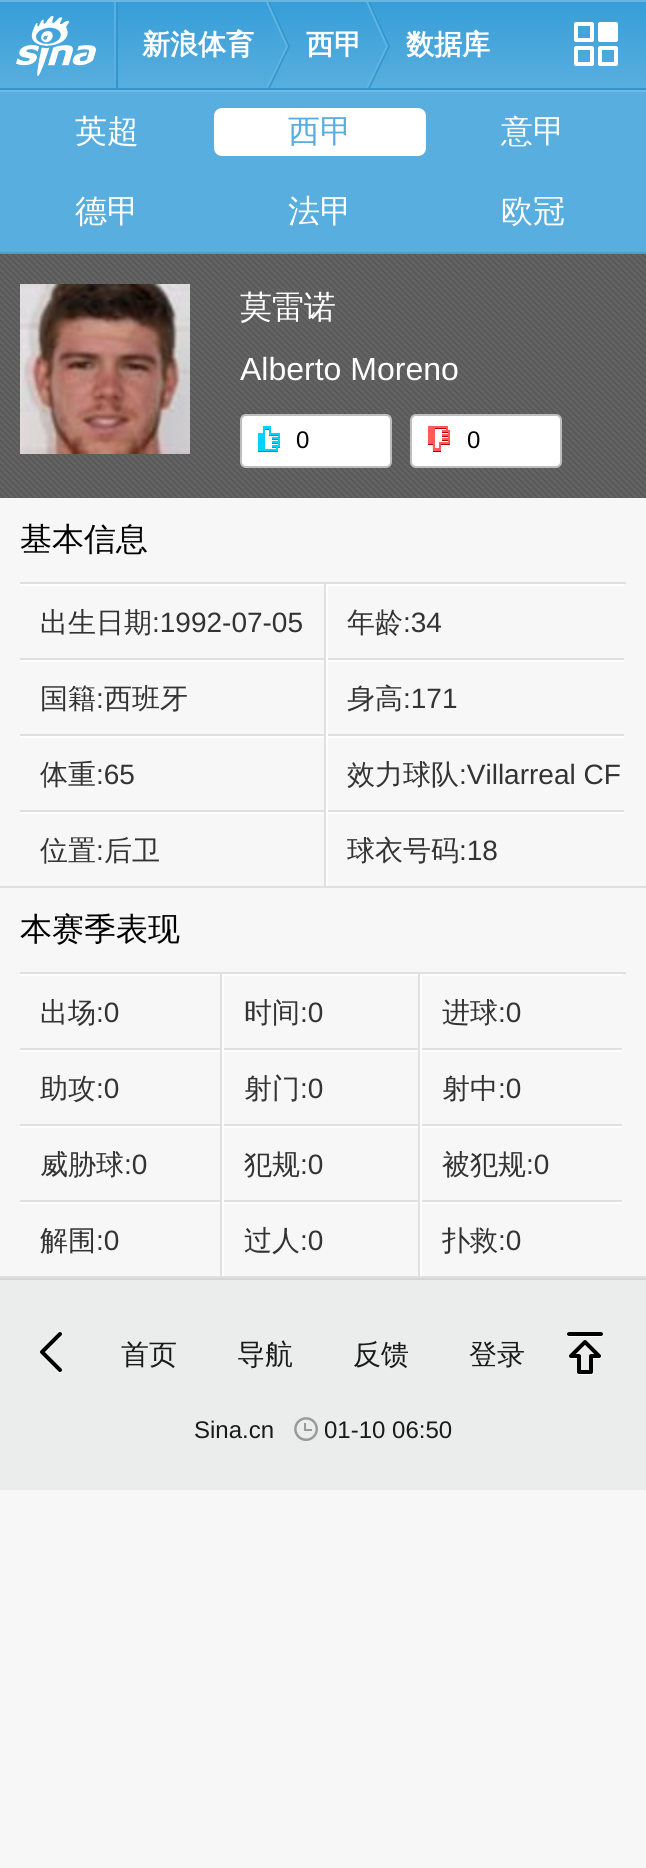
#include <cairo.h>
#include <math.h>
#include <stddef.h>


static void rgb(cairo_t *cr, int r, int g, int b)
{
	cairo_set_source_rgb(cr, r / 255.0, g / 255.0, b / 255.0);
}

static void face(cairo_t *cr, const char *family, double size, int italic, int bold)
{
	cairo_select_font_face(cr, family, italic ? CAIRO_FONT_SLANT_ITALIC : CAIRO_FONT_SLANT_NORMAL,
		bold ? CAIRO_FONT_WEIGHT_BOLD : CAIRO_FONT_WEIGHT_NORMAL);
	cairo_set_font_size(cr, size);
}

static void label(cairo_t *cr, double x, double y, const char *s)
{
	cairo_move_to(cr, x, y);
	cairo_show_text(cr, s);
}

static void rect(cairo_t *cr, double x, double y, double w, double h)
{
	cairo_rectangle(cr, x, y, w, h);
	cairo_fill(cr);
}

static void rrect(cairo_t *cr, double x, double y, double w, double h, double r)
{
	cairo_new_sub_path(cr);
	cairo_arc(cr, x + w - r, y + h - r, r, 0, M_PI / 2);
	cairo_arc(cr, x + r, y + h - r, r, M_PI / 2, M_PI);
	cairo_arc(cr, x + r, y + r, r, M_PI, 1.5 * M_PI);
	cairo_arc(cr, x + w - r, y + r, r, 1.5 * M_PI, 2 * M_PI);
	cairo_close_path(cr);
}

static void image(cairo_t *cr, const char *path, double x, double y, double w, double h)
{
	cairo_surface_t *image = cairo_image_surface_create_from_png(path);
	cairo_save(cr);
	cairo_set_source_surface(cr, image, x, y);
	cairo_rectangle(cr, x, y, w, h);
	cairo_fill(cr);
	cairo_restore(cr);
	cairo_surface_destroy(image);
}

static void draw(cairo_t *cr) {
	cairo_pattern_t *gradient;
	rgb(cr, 247, 247, 247);
	cairo_paint(cr);
	gradient = cairo_pattern_create_linear(323, 2, 323, 88);
	cairo_pattern_add_color_stop_rgba(gradient, 0, 0.216, 0.62, 0.847, 1);
	cairo_pattern_add_color_stop_rgba(gradient, 1, 0.345, 0.682, 0.871, 1);
	cairo_set_source(cr, gradient);
	cairo_pattern_destroy(gradient);
	rect(cr, 0, 2, 646, 86);
	rgb(cr, 104, 182, 226);
	rect(cr, 0, 0, 646, 2);
	rgb(cr, 48, 151, 208);
	rect(cr, 0, 88, 646, 2);
	image(cr, "image0.png", 16, 16, 80, 60);
	rect(cr, 116, 2, 2, 86);
	rgb(cr, 91, 175, 223);
	rect(cr, 114, 2, 2, 86);
	image(cr, "image1.png", 266, 2, 24, 86);
	face(cr, "WenQuanYi Zen Hei", 28, 0, 1);
	rgb(cr, 255, 255, 255);
	label(cr, 142, 54, "新浪体育");
	image(cr, "image1.png", 366, 2, 24, 86);
	label(cr, 306, 54, "西甲");
	label(cr, 406, 54, "数据库");
	image(cr, "image2.png", 574, 22, 44, 44);
	rgb(cr, 88, 174, 222);
	rect(cr, 0, 92, 646, 160);
	rgb(cr, 113, 186, 227);
	rect(cr, 0, 90, 646, 2);
	rgb(cr, 68, 161, 212);
	rect(cr, 0, 252, 646, 2);
	face(cr, "WenQuanYi Zen Hei Medium", 32, 0, 0);
	rgb(cr, 255, 255, 255);
	label(cr, 75, 142, "英超");
	rrect(cr, 214, 108, 212, 48, 8);
	cairo_fill(cr);
	rgb(cr, 88, 174, 222);
	label(cr, 288, 142, "西甲");
	rgb(cr, 255, 255, 255);
	label(cr, 501, 142, "意甲");
	label(cr, 75, 222, "德甲");
	label(cr, 288, 222, "法甲");
	label(cr, 501, 222, "欧冠");
	image(cr, "image3.png", 0, 254, 646, 244);
	image(cr, "image4.png", 20, 284, 170, 170);
	label(cr, 240, 318, "莫雷诺");
	face(cr, "Liberation Sans", 32, 0, 0);
	label(cr, 240, 380, "Alberto Moreno");
	rrect(cr, 241, 415, 150, 52, 5);
	cairo_fill_preserve(cr);
	rgb(cr, 190, 190, 190);
	cairo_stroke(cr);
	image(cr, "image5.png", 258, 426, 22, 26);
	face(cr, "Liberation Sans", 24, 0, 0);
	rgb(cr, 0, 0, 0);
	label(cr, 296, 448, "0");
	rgb(cr, 255, 255, 255);
	rrect(cr, 411, 415, 150, 52, 5);
	cairo_fill_preserve(cr);
	rgb(cr, 190, 190, 190);
	cairo_stroke(cr);
	image(cr, "image6.png", 428, 426, 22, 26);
	rgb(cr, 0, 0, 0);
	label(cr, 467, 448, "0");
	rgb(cr, 224, 224, 224);
	rect(cr, 20, 582, 606, 2);
	face(cr, "WenQuanYi Zen Hei Medium", 32, 0, 0);
	rgb(cr, 0, 0, 0);
	label(cr, 20, 550, "基本信息");
	rgb(cr, 224, 224, 224);
	rect(cr, 0, 886, 646, 2);
	rgb(cr, 255, 255, 255);
	rect(cr, 20, 584, 604, 2);
	rgb(cr, 224, 224, 224);
	rect(cr, 324, 584, 2, 76);
	rect(cr, 20, 658, 604, 2);
	face(cr, "WenQuanYi Zen Hei Medium", 28, 0, 0);
	rgb(cr, 51, 51, 51);
	label(cr, 40, 632, "出生日期");
	face(cr, "Liberation Sans", 28, 0, 0);
	label(cr, 152, 632, ":1992-07-05");
	rgb(cr, 255, 255, 255);
	rect(cr, 326, 584, 2, 76);
	face(cr, "WenQuanYi Zen Hei Medium", 28, 0, 0);
	rgb(cr, 51, 51, 51);
	label(cr, 347, 632, "年龄");
	face(cr, "Liberation Sans", 28, 0, 0);
	label(cr, 403, 632, ":34");
	rgb(cr, 255, 255, 255);
	rect(cr, 20, 660, 604, 2);
	rgb(cr, 224, 224, 224);
	rect(cr, 324, 660, 2, 76);
	rect(cr, 20, 734, 604, 2);
	face(cr, "WenQuanYi Zen Hei Medium", 28, 0, 0);
	rgb(cr, 51, 51, 51);
	label(cr, 40, 708, "国籍");
	face(cr, "Liberation Sans", 28, 0, 0);
	label(cr, 96, 708, ":");
	face(cr, "WenQuanYi Zen Hei Medium", 28, 0, 0);
	label(cr, 104, 708, "西班牙");
	rgb(cr, 255, 255, 255);
	rect(cr, 326, 660, 2, 76);
	rgb(cr, 51, 51, 51);
	label(cr, 347, 708, "身高");
	face(cr, "Liberation Sans", 28, 0, 0);
	label(cr, 403, 708, ":171");
	rgb(cr, 255, 255, 255);
	rect(cr, 20, 736, 604, 2);
	rgb(cr, 224, 224, 224);
	rect(cr, 324, 736, 2, 76);
	rect(cr, 20, 810, 604, 2);
	face(cr, "WenQuanYi Zen Hei Medium", 28, 0, 0);
	rgb(cr, 51, 51, 51);
	label(cr, 40, 784, "体重");
	face(cr, "Liberation Sans", 28, 0, 0);
	label(cr, 96, 784, ":65");
	rgb(cr, 255, 255, 255);
	rect(cr, 326, 736, 2, 76);
	face(cr, "WenQuanYi Zen Hei Medium", 28, 0, 0);
	rgb(cr, 51, 51, 51);
	label(cr, 347, 784, "效力球队");
	face(cr, "Liberation Sans", 28, 0, 0);
	label(cr, 459, 784, ":Villarreal CF");
	rgb(cr, 255, 255, 255);
	rect(cr, 20, 812, 604, 2);
	rgb(cr, 224, 224, 224);
	rect(cr, 324, 812, 2, 74);
	face(cr, "WenQuanYi Zen Hei Medium", 28, 0, 0);
	rgb(cr, 51, 51, 51);
	label(cr, 40, 860, "位置");
	face(cr, "Liberation Sans", 28, 0, 0);
	label(cr, 96, 860, ":");
	face(cr, "WenQuanYi Zen Hei Medium", 28, 0, 0);
	label(cr, 104, 860, "后卫");
	rgb(cr, 255, 255, 255);
	rect(cr, 326, 812, 2, 74);
	rgb(cr, 51, 51, 51);
	label(cr, 347, 860, "球衣号码");
	face(cr, "Liberation Sans", 28, 0, 0);
	label(cr, 459, 860, ":18");
	rgb(cr, 224, 224, 224);
	rect(cr, 20, 972, 606, 2);
	face(cr, "WenQuanYi Zen Hei Medium", 32, 0, 0);
	rgb(cr, 0, 0, 0);
	label(cr, 20, 940, "本赛季表现");
	rgb(cr, 224, 224, 224);
	rect(cr, 0, 1276, 646, 2);
	rgb(cr, 255, 255, 255);
	rect(cr, 20, 974, 602, 2);
	rgb(cr, 224, 224, 224);
	rect(cr, 220, 974, 2, 76);
	rect(cr, 20, 1048, 202, 2);
	face(cr, "WenQuanYi Zen Hei Medium", 28, 0, 0);
	rgb(cr, 51, 51, 51);
	label(cr, 40, 1022, "出场");
	face(cr, "Liberation Sans", 28, 0, 0);
	label(cr, 96, 1022, ":0");
	rgb(cr, 224, 224, 224);
	rect(cr, 418, 974, 2, 76);
	rect(cr, 222, 1048, 400, 2);
	rgb(cr, 255, 255, 255);
	rect(cr, 222, 974, 2, 76);
	face(cr, "WenQuanYi Zen Hei Medium", 28, 0, 0);
	rgb(cr, 51, 51, 51);
	label(cr, 244, 1022, "时间");
	face(cr, "Liberation Sans", 28, 0, 0);
	label(cr, 300, 1022, ":0");
	rgb(cr, 255, 255, 255);
	rect(cr, 420, 974, 2, 76);
	face(cr, "WenQuanYi Zen Hei Medium", 28, 0, 0);
	rgb(cr, 51, 51, 51);
	label(cr, 442, 1022, "进球");
	face(cr, "Liberation Sans", 28, 0, 0);
	label(cr, 498, 1022, ":0");
	rgb(cr, 255, 255, 255);
	rect(cr, 20, 1050, 602, 2);
	rgb(cr, 224, 224, 224);
	rect(cr, 220, 1050, 2, 76);
	rect(cr, 20, 1124, 202, 2);
	face(cr, "WenQuanYi Zen Hei Medium", 28, 0, 0);
	rgb(cr, 51, 51, 51);
	label(cr, 40, 1098, "助攻");
	face(cr, "Liberation Sans", 28, 0, 0);
	label(cr, 96, 1098, ":0");
	rgb(cr, 224, 224, 224);
	rect(cr, 418, 1050, 2, 76);
	rect(cr, 222, 1124, 400, 2);
	rgb(cr, 255, 255, 255);
	rect(cr, 222, 1050, 2, 76);
	face(cr, "WenQuanYi Zen Hei Medium", 28, 0, 0);
	rgb(cr, 51, 51, 51);
	label(cr, 244, 1098, "射门");
	face(cr, "Liberation Sans", 28, 0, 0);
	label(cr, 300, 1098, ":0");
	rgb(cr, 255, 255, 255);
	rect(cr, 420, 1050, 2, 76);
	face(cr, "WenQuanYi Zen Hei Medium", 28, 0, 0);
	rgb(cr, 51, 51, 51);
	label(cr, 442, 1098, "射中");
	face(cr, "Liberation Sans", 28, 0, 0);
	label(cr, 498, 1098, ":0");
	rgb(cr, 255, 255, 255);
	rect(cr, 20, 1126, 602, 2);
	rgb(cr, 224, 224, 224);
	rect(cr, 220, 1126, 2, 76);
	rect(cr, 20, 1200, 202, 2);
	face(cr, "WenQuanYi Zen Hei Medium", 28, 0, 0);
	rgb(cr, 51, 51, 51);
	label(cr, 40, 1174, "威胁球");
	face(cr, "Liberation Sans", 28, 0, 0);
	label(cr, 124, 1174, ":0");
	rgb(cr, 224, 224, 224);
	rect(cr, 418, 1126, 2, 76);
	rect(cr, 222, 1200, 400, 2);
	rgb(cr, 255, 255, 255);
	rect(cr, 222, 1126, 2, 76);
	face(cr, "WenQuanYi Zen Hei Medium", 28, 0, 0);
	rgb(cr, 51, 51, 51);
	label(cr, 244, 1174, "犯规");
	face(cr, "Liberation Sans", 28, 0, 0);
	label(cr, 300, 1174, ":0");
	rgb(cr, 255, 255, 255);
	rect(cr, 420, 1126, 2, 76);
	face(cr, "WenQuanYi Zen Hei Medium", 28, 0, 0);
	rgb(cr, 51, 51, 51);
	label(cr, 442, 1174, "被犯规");
	face(cr, "Liberation Sans", 28, 0, 0);
	label(cr, 526, 1174, ":0");
	rgb(cr, 255, 255, 255);
	rect(cr, 20, 1202, 602, 2);
	rgb(cr, 224, 224, 224);
	rect(cr, 220, 1202, 2, 74);
	face(cr, "WenQuanYi Zen Hei Medium", 28, 0, 0);
	rgb(cr, 51, 51, 51);
	label(cr, 40, 1250, "解围");
	face(cr, "Liberation Sans", 28, 0, 0);
	label(cr, 96, 1250, ":0");
	rgb(cr, 224, 224, 224);
	rect(cr, 418, 1202, 2, 74);
	rgb(cr, 255, 255, 255);
	rect(cr, 222, 1202, 2, 74);
	face(cr, "WenQuanYi Zen Hei Medium", 28, 0, 0);
	rgb(cr, 51, 51, 51);
	label(cr, 244, 1250, "过人");
	face(cr, "Liberation Sans", 28, 0, 0);
	label(cr, 300, 1250, ":0");
	rgb(cr, 255, 255, 255);
	rect(cr, 420, 1202, 2, 74);
	face(cr, "WenQuanYi Zen Hei Medium", 28, 0, 0);
	rgb(cr, 51, 51, 51);
	label(cr, 442, 1250, "扑救");
	face(cr, "Liberation Sans", 28, 0, 0);
	label(cr, 498, 1250, ":0");
	rgb(cr, 235, 236, 236);
	rect(cr, 0, 1280, 646, 210);
	rgb(cr, 213, 213, 213);
	rect(cr, 0, 1278, 646, 2);
	image(cr, "image7.png", 40, 1332, 22, 41);
	face(cr, "WenQuanYi Zen Hei Medium", 28, 0, 0);
	rgb(cr, 26, 26, 26);
	label(cr, 121, 1364, "首页");
	label(cr, 237, 1364, "导航");
	label(cr, 353, 1364, "反馈");
	label(cr, 469, 1364, "登录");
	image(cr, "image8.png", 567, 1332, 36, 43);
	face(cr, "Liberation Sans", 24, 0, 0);
	label(cr, 194, 1438, "Sina.cn");
	image(cr, "image9.png", 294, 1417, 24, 24);
	label(cr, 324, 1438, "01-10 06:50");
}

int main(void) {
	cairo_surface_t *surface = cairo_image_surface_create(CAIRO_FORMAT_RGB24, 646, 1868);
	cairo_t *cr = cairo_create(surface);
	cairo_font_options_t *options = cairo_font_options_create();
	cairo_font_options_set_hint_metrics(options, CAIRO_HINT_METRICS_OFF);
	cairo_font_options_set_hint_style(options, CAIRO_HINT_STYLE_NONE);
	cairo_set_font_options(cr, options);
	cairo_set_miter_limit(cr, 4);
	draw(cr);
	cairo_surface_write_to_png(surface, "render.png");
	cairo_font_options_destroy(options);
	cairo_destroy(cr);
	cairo_surface_destroy(surface);
	return 0;
}
